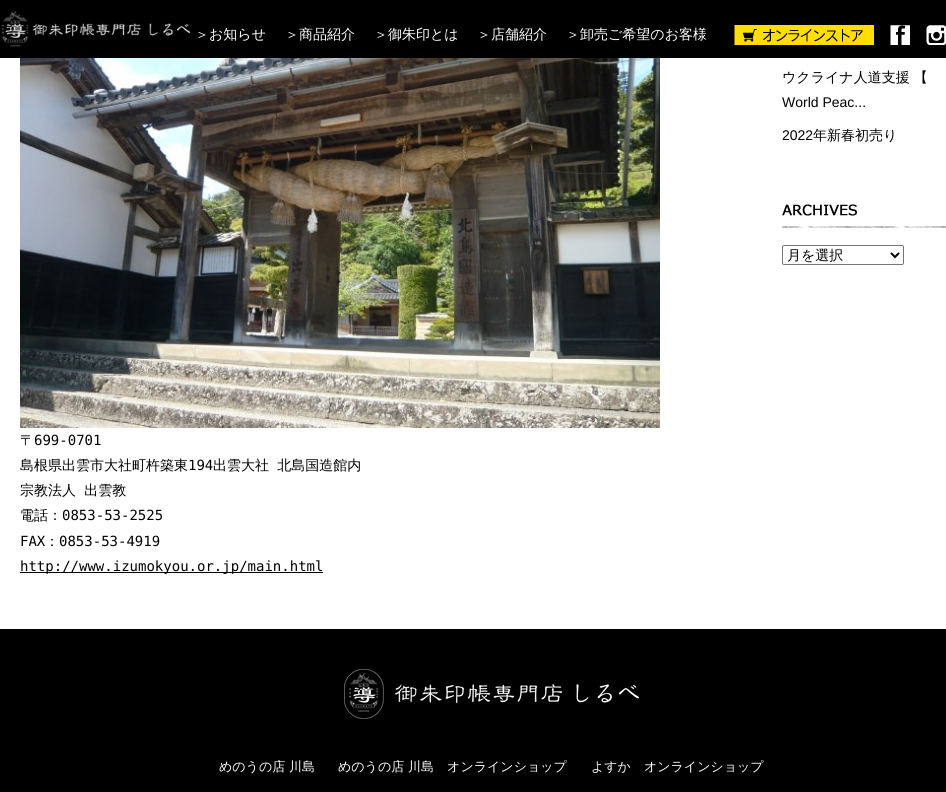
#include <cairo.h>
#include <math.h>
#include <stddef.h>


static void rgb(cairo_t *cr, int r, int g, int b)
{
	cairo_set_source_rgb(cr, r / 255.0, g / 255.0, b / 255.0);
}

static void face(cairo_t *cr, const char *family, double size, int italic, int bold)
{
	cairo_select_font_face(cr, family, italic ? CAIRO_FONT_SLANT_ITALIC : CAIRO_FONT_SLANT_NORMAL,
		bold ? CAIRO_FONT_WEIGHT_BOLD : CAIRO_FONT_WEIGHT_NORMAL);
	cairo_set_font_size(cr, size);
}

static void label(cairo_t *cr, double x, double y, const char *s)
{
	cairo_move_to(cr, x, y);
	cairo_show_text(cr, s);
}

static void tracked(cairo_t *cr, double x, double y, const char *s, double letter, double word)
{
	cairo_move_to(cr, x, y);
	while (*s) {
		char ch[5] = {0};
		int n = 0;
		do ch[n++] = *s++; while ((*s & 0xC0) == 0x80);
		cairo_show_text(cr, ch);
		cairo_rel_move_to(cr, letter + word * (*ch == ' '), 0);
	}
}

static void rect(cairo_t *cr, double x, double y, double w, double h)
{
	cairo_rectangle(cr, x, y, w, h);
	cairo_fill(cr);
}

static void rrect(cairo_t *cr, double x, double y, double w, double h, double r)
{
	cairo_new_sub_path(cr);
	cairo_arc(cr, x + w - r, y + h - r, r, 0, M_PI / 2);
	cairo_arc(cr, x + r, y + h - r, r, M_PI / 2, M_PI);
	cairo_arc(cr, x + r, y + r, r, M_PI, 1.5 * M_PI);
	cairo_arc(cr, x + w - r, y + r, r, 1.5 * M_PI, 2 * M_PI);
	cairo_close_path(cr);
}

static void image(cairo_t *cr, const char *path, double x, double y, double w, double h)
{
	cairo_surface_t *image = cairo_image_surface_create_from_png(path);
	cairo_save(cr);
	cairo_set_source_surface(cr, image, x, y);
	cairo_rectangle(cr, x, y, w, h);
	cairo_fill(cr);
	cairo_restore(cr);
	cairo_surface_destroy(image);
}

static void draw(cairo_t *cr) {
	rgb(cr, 255, 255, 255);
	cairo_paint(cr);
	rgb(cr, 0, 0, 0);
	rect(cr, 0, 0, 946, 58);
	image(cr, "image0.png", 1, 11, 189, 36);
	face(cr, "WenQuanYi Zen Hei Medium", 14, 0, 0);
	rgb(cr, 255, 255, 255);
	label(cr, 195, 39, "＞お知らせ");
	label(cr, 285, 39, "＞商品紹介");
	label(cr, 374, 39, "＞御朱印とは");
	label(cr, 477, 39, "＞店舗紹介");
	label(cr, 566, 39, "＞卸売ご希望のお客様");
	image(cr, "image1.png", 734, 25, 140, 20);
	image(cr, "image2.png", 890, 25, 20, 20);
	image(cr, "image3.png", 926, 25, 20, 20);
	rgb(cr, 0, 0, 0);
	label(cr, 782, 82, "ウクライナ人道支援 【");
	face(cr, "Liberation Sans", 14, 0, 0);
	label(cr, 782, 107, "World Peac...");
	label(cr, 782, 140, "2022");
	face(cr, "WenQuanYi Zen Hei Medium", 14, 0, 0);
	label(cr, 813, 140, "年新春初売り");
	image(cr, "image4.png", 782, 204, 164, 24);
	rrect(cr, 782.5, 245.5, 121, 19, 1.5);
	rgb(cr, 118, 118, 118);
	cairo_set_line_width(cr, 1);
	cairo_stroke(cr);
	cairo_new_path(cr);
	cairo_move_to(cr, 891, 253);
	cairo_line_to(cr, 895, 257);
	cairo_line_to(cr, 899, 253);
	rgb(cr, 0, 0, 0);
	cairo_set_line_width(cr, 2);
	cairo_stroke(cr);
	label(cr, 787, 260, "月を選択");
	image(cr, "image5.png", 20, 58, 640, 370);
	label(cr, 20, 445, "〒");
	face(cr, "DejaVu Sans Mono", 14, 0, 0);
	label(cr, 34, 445, "699-0701");
	face(cr, "WenQuanYi Zen Hei Medium", 14, 0, 0);
	label(cr, 20, 470, "島根県出雲市大社町杵築東");
	face(cr, "DejaVu Sans Mono", 14, 0, 0);
	label(cr, 188, 470, "194");
	face(cr, "WenQuanYi Zen Hei Medium", 14, 0, 0);
	tracked(cr, 213, 470, "出雲大社 北島国造館内", 0, 4);
	tracked(cr, 20, 495, "宗教法人 出雲教", 0, 4);
	label(cr, 20, 520, "電話：");
	face(cr, "DejaVu Sans Mono", 14, 0, 0);
	label(cr, 62, 520, "0853-53-2525");
	label(cr, 20, 546, "FAX");
	face(cr, "WenQuanYi Zen Hei Medium", 14, 0, 0);
	label(cr, 45, 546, "：");
	face(cr, "DejaVu Sans Mono", 14, 0, 0);
	label(cr, 59, 546, "0853-53-4919");
	rect(cr, 20, 572, 303, 1);
	label(cr, 20, 571, "http://www.izumokyou.or.jp/main.html");
	rect(cr, 0, 629, 946, 163);
	image(cr, "image6.png", 344, 669, 295, 50);
	face(cr, "WenQuanYi Zen Hei Medium", 13, 0, 0);
	rgb(cr, 255, 255, 255);
	label(cr, 219, 771, "めのうの店 川島");
	label(cr, 338, 771, "めのうの店 川島　オンラインショップ");
	label(cr, 591, 771, "よすか　オンラインショップ");
}

int main(void) {
	cairo_surface_t *surface = cairo_image_surface_create(CAIRO_FORMAT_RGB24, 946, 792);
	cairo_t *cr = cairo_create(surface);
	cairo_font_options_t *options = cairo_font_options_create();
	cairo_font_options_set_hint_metrics(options, CAIRO_HINT_METRICS_OFF);
	cairo_font_options_set_hint_style(options, CAIRO_HINT_STYLE_NONE);
	cairo_set_font_options(cr, options);
	cairo_set_miter_limit(cr, 4);
	draw(cr);
	cairo_surface_write_to_png(surface, "render.png");
	cairo_font_options_destroy(options);
	cairo_destroy(cr);
	cairo_surface_destroy(surface);
	return 0;
}
